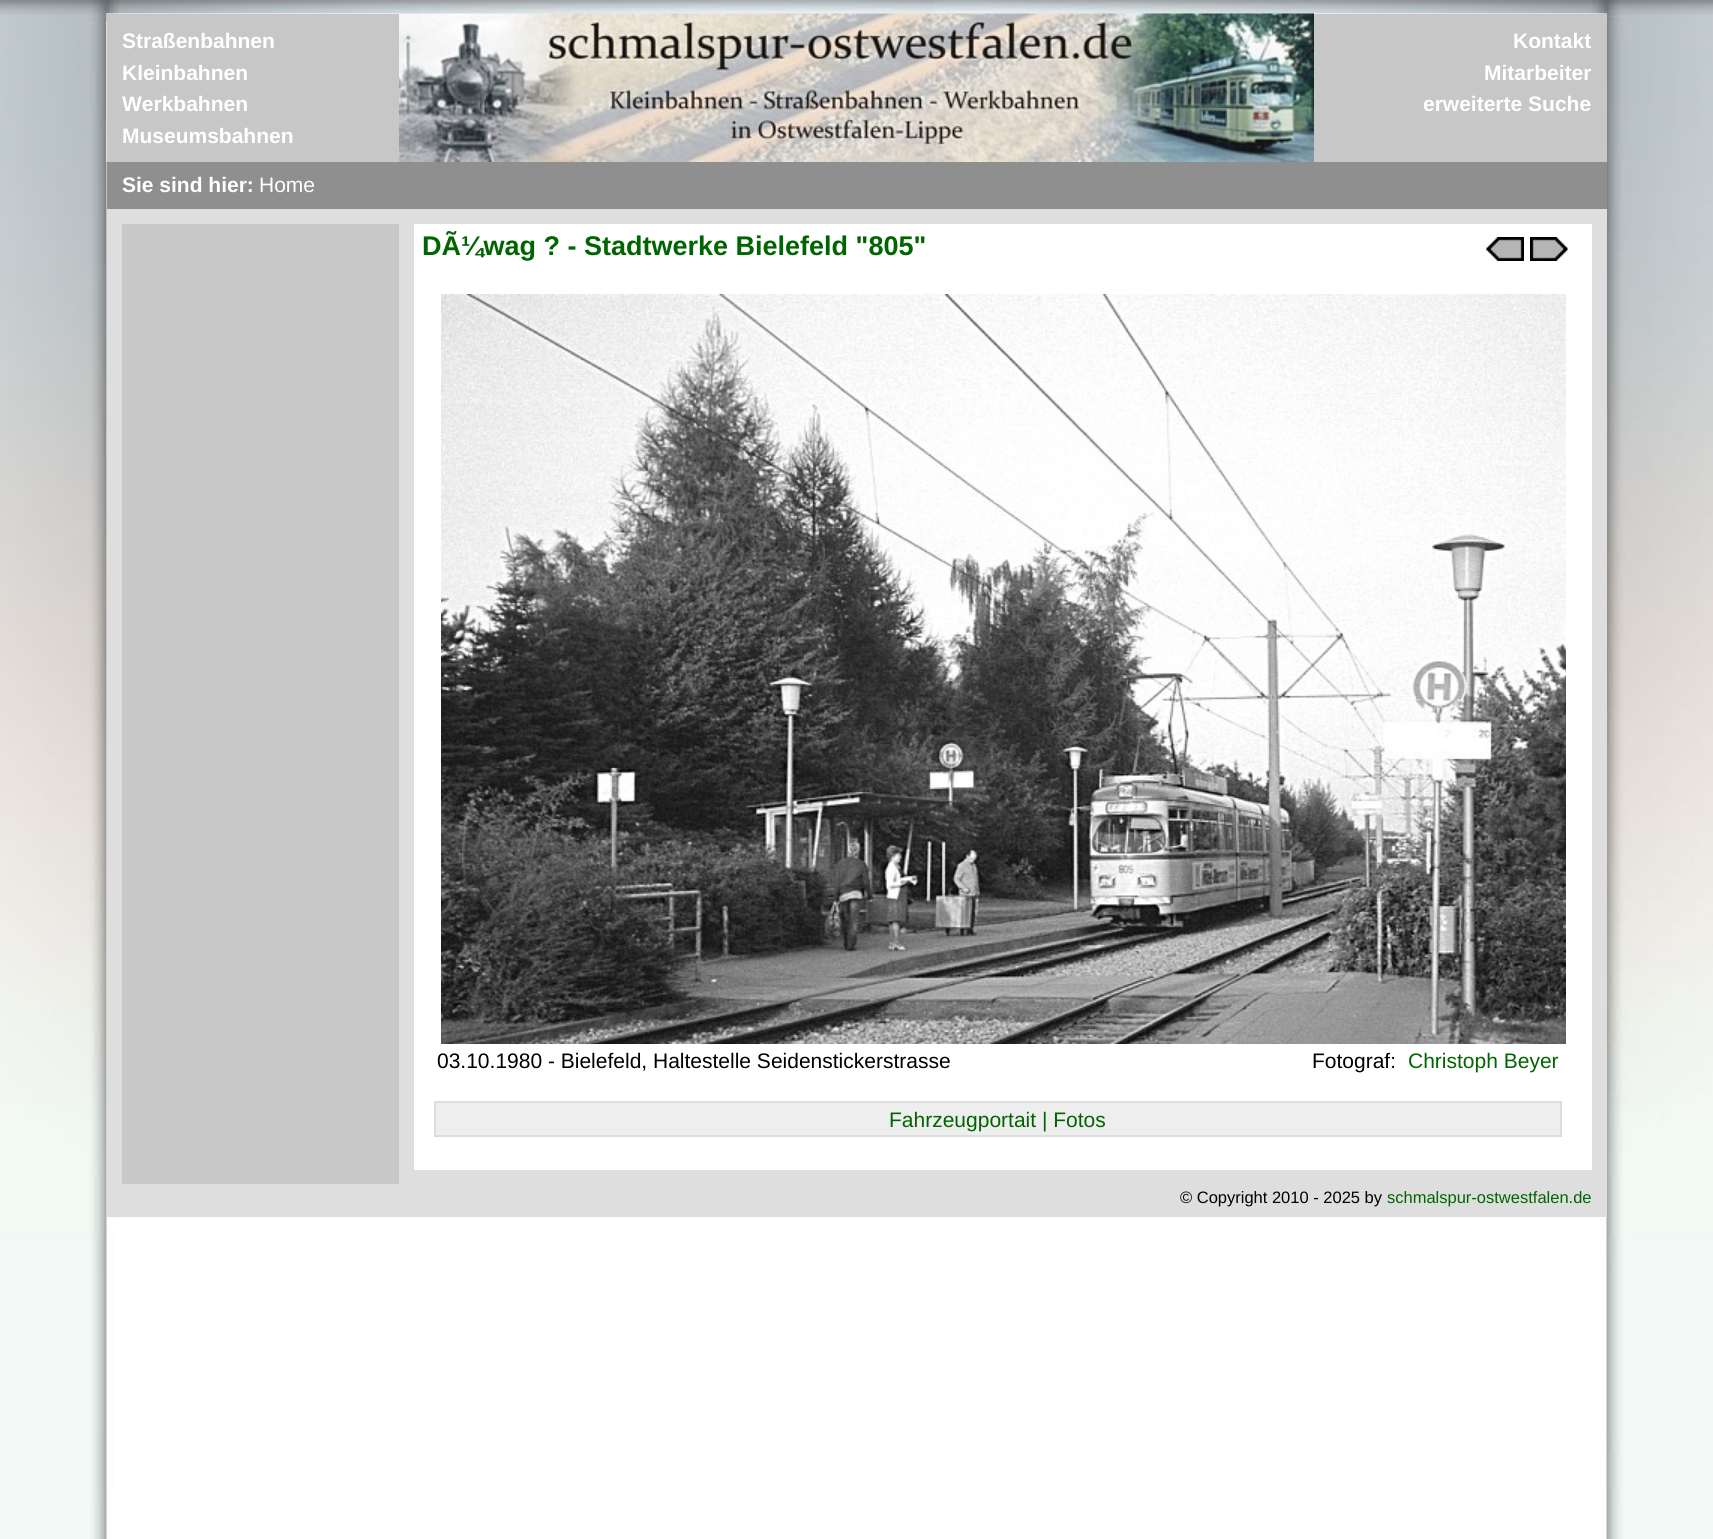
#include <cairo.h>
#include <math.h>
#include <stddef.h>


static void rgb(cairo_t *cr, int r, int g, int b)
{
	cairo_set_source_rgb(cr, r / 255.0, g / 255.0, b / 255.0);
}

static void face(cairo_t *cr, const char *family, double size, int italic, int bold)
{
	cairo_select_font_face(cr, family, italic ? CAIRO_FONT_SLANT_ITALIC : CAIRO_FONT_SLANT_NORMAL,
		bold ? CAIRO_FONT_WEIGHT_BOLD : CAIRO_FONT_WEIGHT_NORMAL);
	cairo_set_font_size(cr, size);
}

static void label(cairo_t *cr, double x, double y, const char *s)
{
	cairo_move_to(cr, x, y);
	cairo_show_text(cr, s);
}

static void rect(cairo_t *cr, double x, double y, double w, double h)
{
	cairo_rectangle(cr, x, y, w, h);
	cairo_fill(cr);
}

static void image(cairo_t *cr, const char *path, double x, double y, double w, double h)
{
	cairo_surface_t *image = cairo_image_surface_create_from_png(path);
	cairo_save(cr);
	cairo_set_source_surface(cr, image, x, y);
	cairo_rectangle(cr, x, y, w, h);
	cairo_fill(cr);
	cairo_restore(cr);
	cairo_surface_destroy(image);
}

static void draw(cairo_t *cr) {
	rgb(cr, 255, 255, 255);
	cairo_paint(cr);
	image(cr, "image0.png", 0, 0, 1713, 1539);
	rgb(cr, 222, 222, 222);
	rect(cr, 107, 209, 1500, 1008);
	rgb(cr, 143, 143, 143);
	rect(cr, 107, 14, 1500, 195);
	cairo_set_source_rgba(cr, 1, 1, 1, 0.5);
	rect(cr, 106, 13, 293, 149);
	face(cr, "Liberation Sans", 21, 0, 1);
	rgb(cr, 255, 255, 255);
	label(cr, 122, 48, "Straßenbahnen");
	label(cr, 122, 80, "Kleinbahnen");
	label(cr, 122, 111, "Werkbahnen");
	label(cr, 122, 143, "Museumsbahnen");
	image(cr, "image1.png", 399, 13, 915, 149);
	cairo_set_source_rgba(cr, 1, 1, 1, 0.5);
	rect(cr, 1314, 13, 293, 149);
	rgb(cr, 255, 255, 255);
	label(cr, 1513, 48, "Kontakt");
	label(cr, 1484, 80, "Mitarbeiter");
	label(cr, 1423, 111, "erweiterte Suche");
	label(cr, 122, 192, "Sie sind hier:");
	face(cr, "Liberation Sans", 21, 0, 0);
	label(cr, 259, 192, "Home");
	rgb(cr, 200, 200, 200);
	rect(cr, 122, 224, 277, 960);
	rgb(cr, 255, 255, 255);
	rect(cr, 414, 224, 1178, 946);
	face(cr, "Liberation Sans", 27, 0, 1);
	rgb(cr, 0, 100, 0);
	label(cr, 422, 255, "DÃ¼wag ? - Stadtwerke Bielefeld \"805\"");
	image(cr, "image2.png", 1486, 237, 38, 24);
	image(cr, "image3.png", 1530, 237, 38, 24);
	image(cr, "image4.png", 441, 294, 1125, 750);
	face(cr, "Liberation Sans", 21, 0, 0);
	rgb(cr, 0, 0, 0);
	label(cr, 437, 1068, "03.10.1980 - Bielefeld, Haltestelle Seidenstickerstrasse");
	label(cr, 1312, 1068, "Fotograf:");
	rgb(cr, 0, 100, 0);
	label(cr, 1408, 1068, "Christoph Beyer");
	rgb(cr, 238, 238, 238);
	cairo_rectangle(cr, 435, 1102, 1126, 34);
	cairo_fill_preserve(cr);
	rgb(cr, 221, 221, 221);
	cairo_stroke(cr);
	rgb(cr, 0, 100, 0);
	label(cr, 889, 1127, "Fahrzeugportait | Fotos");
	face(cr, "Liberation Sans", 16.5, 0, 0);
	rgb(cr, 0, 0, 0);
	label(cr, 1180, 1203, "© Copyright 2010 - 2025 by");
	rgb(cr, 0, 100, 0);
	label(cr, 1387, 1203, "schmalspur-ostwestfalen.de");
}

int main(void) {
	cairo_surface_t *surface = cairo_image_surface_create(CAIRO_FORMAT_RGB24, 1713, 1539);
	cairo_t *cr = cairo_create(surface);
	cairo_font_options_t *options = cairo_font_options_create();
	cairo_font_options_set_hint_metrics(options, CAIRO_HINT_METRICS_OFF);
	cairo_font_options_set_hint_style(options, CAIRO_HINT_STYLE_NONE);
	cairo_set_font_options(cr, options);
	cairo_set_miter_limit(cr, 4);
	draw(cr);
	cairo_surface_write_to_png(surface, "render.png");
	cairo_font_options_destroy(options);
	cairo_destroy(cr);
	cairo_surface_destroy(surface);
	return 0;
}
